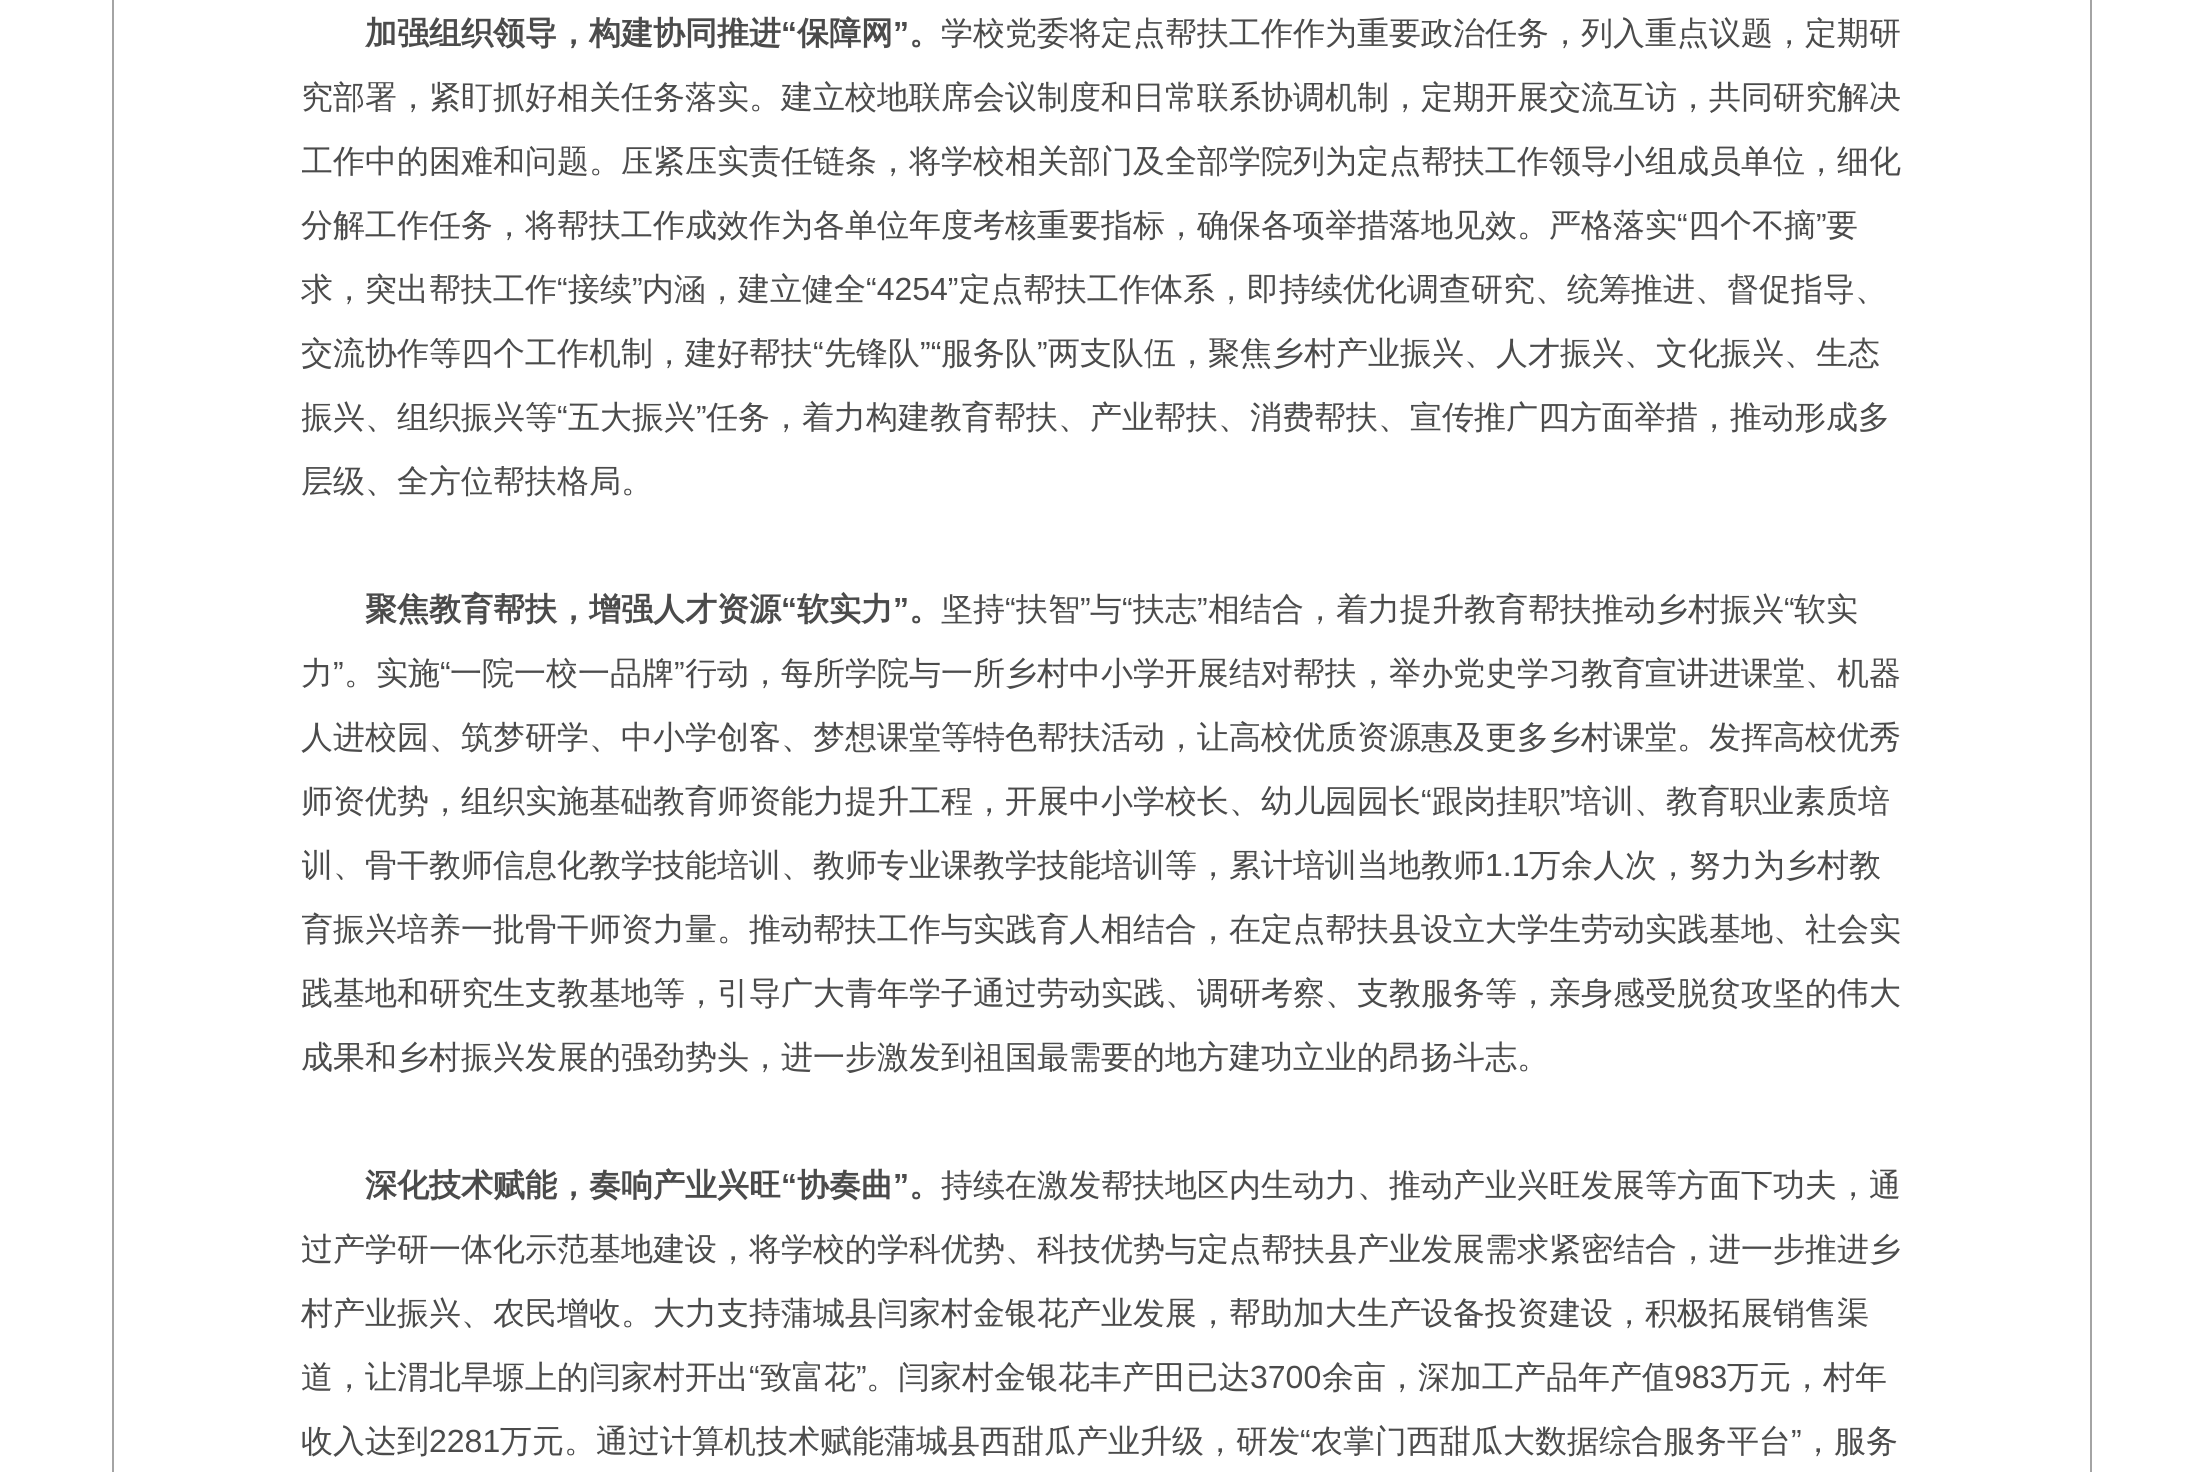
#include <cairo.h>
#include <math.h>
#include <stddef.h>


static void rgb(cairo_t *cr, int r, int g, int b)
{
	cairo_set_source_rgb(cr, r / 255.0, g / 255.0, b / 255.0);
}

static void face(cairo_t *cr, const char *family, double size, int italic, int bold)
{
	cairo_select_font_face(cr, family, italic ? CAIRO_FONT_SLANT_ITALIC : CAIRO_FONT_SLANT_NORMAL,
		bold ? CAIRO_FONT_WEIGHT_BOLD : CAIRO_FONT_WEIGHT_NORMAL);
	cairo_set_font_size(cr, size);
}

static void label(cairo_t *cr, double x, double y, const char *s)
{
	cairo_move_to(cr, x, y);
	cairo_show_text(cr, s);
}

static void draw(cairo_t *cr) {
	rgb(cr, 255, 255, 255);
	cairo_paint(cr);
	cairo_rectangle(cr, 113, -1, 1978, 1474);
	rgb(cr, 164, 164, 164);
	cairo_stroke(cr);
	face(cr, "WenQuanYi Zen Hei", 32, 0, 1);
	rgb(cr, 75, 75, 75);
	label(cr, 365, 44, "加强组织领导，构建协同推进");
	face(cr, "Liberation Sans", 32, 0, 1);
	label(cr, 781, 44, "“");
	face(cr, "WenQuanYi Zen Hei", 32, 0, 1);
	label(cr, 797, 44, "保障网");
	face(cr, "Liberation Sans", 32, 0, 1);
	label(cr, 893, 44, "”");
	face(cr, "WenQuanYi Zen Hei Medium", 32, 0, 0);
	label(cr, 941, 44, "学校党委将定点帮扶工作作为重要政治任务，列入重点议题，定期研");
	face(cr, "WenQuanYi Zen Hei", 32, 0, 1);
	label(cr, 909, 44, "。");
	face(cr, "WenQuanYi Zen Hei Medium", 32, 0, 0);
	label(cr, 301, 108, "究部署，紧盯抓好相关任务落实。建立校地联席会议制度和日常联系协调机制，定期开展交流互访，共同研究解决");
	cairo_save(cr);
	cairo_rectangle(cr, 302, 0, 1600, 546);
	cairo_clip(cr);
	label(cr, 301, 172, "工作中的困难和问题。压紧压实责任链条，将学校相关部门及全部学院列为定点帮扶工作领导小组成员单位，细化");
	cairo_restore(cr);
	label(cr, 301, 236, "分解工作任务，将帮扶工作成效作为各单位年度考核重要指标，确保各项举措落地见效。严格落实");
	face(cr, "Liberation Sans", 32, 0, 0);
	label(cr, 1677, 236, "“");
	face(cr, "WenQuanYi Zen Hei Medium", 32, 0, 0);
	label(cr, 1688, 236, "四个不摘");
	face(cr, "Liberation Sans", 32, 0, 0);
	label(cr, 1816, 236, "”");
	face(cr, "WenQuanYi Zen Hei Medium", 32, 0, 0);
	label(cr, 1826, 236, "要");
	label(cr, 301, 300, "求，突出帮扶工作");
	face(cr, "Liberation Sans", 32, 0, 0);
	label(cr, 557, 300, "“");
	face(cr, "WenQuanYi Zen Hei Medium", 32, 0, 0);
	label(cr, 568, 300, "接续");
	face(cr, "Liberation Sans", 32, 0, 0);
	label(cr, 632, 300, "”");
	face(cr, "WenQuanYi Zen Hei Medium", 32, 0, 0);
	label(cr, 642, 300, "内涵，建立健全");
	face(cr, "Liberation Sans", 32, 0, 0);
	label(cr, 866, 300, "“4254”");
	face(cr, "WenQuanYi Zen Hei Medium", 32, 0, 0);
	label(cr, 959, 300, "定点帮扶工作体系，即持续优化调查研究、统筹推进、督促指导、");
	label(cr, 301, 364, "交流协作等四个工作机制，建好帮扶");
	face(cr, "Liberation Sans", 32, 0, 0);
	label(cr, 813, 364, "“");
	face(cr, "WenQuanYi Zen Hei Medium", 32, 0, 0);
	label(cr, 824, 364, "先锋队");
	face(cr, "Liberation Sans", 32, 0, 0);
	label(cr, 920, 364, "”“");
	face(cr, "WenQuanYi Zen Hei Medium", 32, 0, 0);
	label(cr, 941, 364, "服务队");
	face(cr, "Liberation Sans", 32, 0, 0);
	label(cr, 1037, 364, "”");
	face(cr, "WenQuanYi Zen Hei Medium", 32, 0, 0);
	label(cr, 1048, 364, "两支队伍，聚焦乡村产业振兴、人才振兴、文化振兴、生态");
	cairo_save(cr);
	cairo_rectangle(cr, 302, 0, 1600, 546);
	cairo_clip(cr);
	label(cr, 301, 428, "振兴、组织振兴等");
	cairo_restore(cr);
	face(cr, "Liberation Sans", 32, 0, 0);
	label(cr, 557, 428, "“");
	face(cr, "WenQuanYi Zen Hei Medium", 32, 0, 0);
	label(cr, 568, 428, "五大振兴");
	face(cr, "Liberation Sans", 32, 0, 0);
	label(cr, 696, 428, "”");
	face(cr, "WenQuanYi Zen Hei Medium", 32, 0, 0);
	label(cr, 706, 428, "任务，着力构建教育帮扶、产业帮扶、消费帮扶、宣传推广四方面举措，推动形成多");
	label(cr, 301, 492, "层级、全方位帮扶格局。");
	face(cr, "WenQuanYi Zen Hei", 32, 0, 1);
	label(cr, 365, 620, "聚焦教育帮扶，增强人才资源");
	face(cr, "Liberation Sans", 32, 0, 1);
	label(cr, 781, 620, "“");
	face(cr, "WenQuanYi Zen Hei", 32, 0, 1);
	label(cr, 797, 620, "软实力");
	face(cr, "Liberation Sans", 32, 0, 1);
	label(cr, 893, 620, "”");
	face(cr, "WenQuanYi Zen Hei Medium", 32, 0, 0);
	label(cr, 941, 620, "坚持");
	face(cr, "Liberation Sans", 32, 0, 0);
	label(cr, 1005, 620, "“");
	face(cr, "WenQuanYi Zen Hei Medium", 32, 0, 0);
	label(cr, 1016, 620, "扶智");
	face(cr, "Liberation Sans", 32, 0, 0);
	label(cr, 1080, 620, "”");
	face(cr, "WenQuanYi Zen Hei Medium", 32, 0, 0);
	label(cr, 1090, 620, "与");
	face(cr, "Liberation Sans", 32, 0, 0);
	label(cr, 1122, 620, "“");
	face(cr, "WenQuanYi Zen Hei Medium", 32, 0, 0);
	label(cr, 1133, 620, "扶志");
	face(cr, "Liberation Sans", 32, 0, 0);
	label(cr, 1197, 620, "”");
	face(cr, "WenQuanYi Zen Hei Medium", 32, 0, 0);
	label(cr, 1208, 620, "相结合，着力提升教育帮扶推动乡村振兴");
	face(cr, "Liberation Sans", 32, 0, 0);
	label(cr, 1784, 620, "“");
	face(cr, "WenQuanYi Zen Hei Medium", 32, 0, 0);
	label(cr, 1794, 620, "软实");
	face(cr, "WenQuanYi Zen Hei", 32, 0, 1);
	label(cr, 909, 620, "。");
	face(cr, "WenQuanYi Zen Hei Medium", 32, 0, 0);
	label(cr, 301, 684, "力");
	face(cr, "Liberation Sans", 32, 0, 0);
	label(cr, 333, 684, "”");
	face(cr, "WenQuanYi Zen Hei Medium", 32, 0, 0);
	label(cr, 344, 684, "。实施");
	face(cr, "Liberation Sans", 32, 0, 0);
	label(cr, 440, 684, "“");
	face(cr, "WenQuanYi Zen Hei Medium", 32, 0, 0);
	label(cr, 450, 684, "一院一校一品牌");
	face(cr, "Liberation Sans", 32, 0, 0);
	label(cr, 674, 684, "”");
	face(cr, "WenQuanYi Zen Hei Medium", 32, 0, 0);
	label(cr, 685, 684, "行动，每所学院与一所乡村中小学开展结对帮扶，举办党史学习教育宣讲进课堂、机器");
	label(cr, 301, 748, "人进校园、筑梦研学、中小学创客、梦想课堂等特色帮扶活动，让高校优质资源惠及更多乡村课堂。发挥高校优秀");
	label(cr, 301, 812, "师资优势，组织实施基础教育师资能力提升工程，开展中小学校长、幼儿园园长");
	face(cr, "Liberation Sans", 32, 0, 0);
	label(cr, 1421, 812, "“");
	face(cr, "WenQuanYi Zen Hei Medium", 32, 0, 0);
	label(cr, 1432, 812, "跟岗挂职");
	face(cr, "Liberation Sans", 32, 0, 0);
	label(cr, 1560, 812, "”");
	face(cr, "WenQuanYi Zen Hei Medium", 32, 0, 0);
	label(cr, 1570, 812, "培训、教育职业素质培");
	cairo_save(cr);
	cairo_rectangle(cr, 302, 546, 1600, 576);
	cairo_clip(cr);
	label(cr, 301, 876, "训、骨干教师信息化教学技能培训、教师专业课教学技能培训等，累计培训当地教师");
	cairo_restore(cr);
	face(cr, "Liberation Sans", 32, 0, 0);
	label(cr, 1485, 876, "1.1");
	face(cr, "WenQuanYi Zen Hei Medium", 32, 0, 0);
	label(cr, 1529, 876, "万余人次，努力为乡村教");
	cairo_save(cr);
	cairo_rectangle(cr, 302, 546, 1600, 576);
	cairo_clip(cr);
	label(cr, 301, 940, "育振兴培养一批骨干师资力量。推动帮扶工作与实践育人相结合，在定点帮扶县设立大学生劳动实践基地、社会实");
	cairo_restore(cr);
	label(cr, 301, 1004, "践基地和研究生支教基地等，引导广大青年学子通过劳动实践、调研考察、支教服务等，亲身感受脱贫攻坚的伟大");
	label(cr, 301, 1068, "成果和乡村振兴发展的强劲势头，进一步激发到祖国最需要的地方建功立业的昂扬斗志。");
	face(cr, "WenQuanYi Zen Hei", 32, 0, 1);
	label(cr, 365, 1196, "深化技术赋能，奏响产业兴旺");
	face(cr, "Liberation Sans", 32, 0, 1);
	label(cr, 781, 1196, "“");
	face(cr, "WenQuanYi Zen Hei", 32, 0, 1);
	label(cr, 797, 1196, "协奏曲");
	face(cr, "Liberation Sans", 32, 0, 1);
	label(cr, 893, 1196, "”");
	face(cr, "WenQuanYi Zen Hei Medium", 32, 0, 0);
	label(cr, 941, 1196, "持续在激发帮扶地区内生动力、推动产业兴旺发展等方面下功夫，通");
	face(cr, "WenQuanYi Zen Hei", 32, 0, 1);
	label(cr, 909, 1196, "。");
	cairo_save(cr);
	cairo_rectangle(cr, 302, 1122, 1600, 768);
	cairo_clip(cr);
	face(cr, "WenQuanYi Zen Hei Medium", 32, 0, 0);
	label(cr, 301, 1260, "过产学研一体化示范基地建设，将学校的学科优势、科技优势与定点帮扶县产业发展需求紧密结合，进一步推进乡");
	cairo_restore(cr);
	face(cr, "WenQuanYi Zen Hei Medium", 32, 0, 0);
	label(cr, 301, 1324, "村产业振兴、农民增收。大力支持蒲城县闫家村金银花产业发展，帮助加大生产设备投资建设，积极拓展销售渠");
	label(cr, 301, 1388, "道，让渭北旱塬上的闫家村开出");
	face(cr, "Liberation Sans", 32, 0, 0);
	label(cr, 749, 1388, "“");
	face(cr, "WenQuanYi Zen Hei Medium", 32, 0, 0);
	label(cr, 760, 1388, "致富花");
	face(cr, "Liberation Sans", 32, 0, 0);
	label(cr, 856, 1388, "”");
	face(cr, "WenQuanYi Zen Hei Medium", 32, 0, 0);
	label(cr, 866, 1388, "。闫家村金银花丰产田已达");
	face(cr, "Liberation Sans", 32, 0, 0);
	label(cr, 1250, 1388, "3700");
	face(cr, "WenQuanYi Zen Hei Medium", 32, 0, 0);
	label(cr, 1322, 1388, "余亩，深加工产品年产值");
	face(cr, "Liberation Sans", 32, 0, 0);
	label(cr, 1674, 1388, "983");
	face(cr, "WenQuanYi Zen Hei Medium", 32, 0, 0);
	label(cr, 1727, 1388, "万元，村年");
	label(cr, 301, 1452, "收入达到");
	face(cr, "Liberation Sans", 32, 0, 0);
	label(cr, 429, 1452, "2281");
	face(cr, "WenQuanYi Zen Hei Medium", 32, 0, 0);
	label(cr, 500, 1452, "万元。通过计算机技术赋能蒲城县西甜瓜产业升级，研发");
	face(cr, "Liberation Sans", 32, 0, 0);
	label(cr, 1300, 1452, "“");
	face(cr, "WenQuanYi Zen Hei Medium", 32, 0, 0);
	label(cr, 1311, 1452, "农掌门西甜瓜大数据综合服务平台");
	face(cr, "Liberation Sans", 32, 0, 0);
	label(cr, 1791, 1452, "”");
	face(cr, "WenQuanYi Zen Hei Medium", 32, 0, 0);
	label(cr, 1802, 1452, "，服务");
}

int main(void) {
	cairo_surface_t *surface = cairo_image_surface_create(CAIRO_FORMAT_RGB24, 2201, 1472);
	cairo_t *cr = cairo_create(surface);
	cairo_font_options_t *options = cairo_font_options_create();
	cairo_font_options_set_hint_metrics(options, CAIRO_HINT_METRICS_OFF);
	cairo_font_options_set_hint_style(options, CAIRO_HINT_STYLE_NONE);
	cairo_set_font_options(cr, options);
	cairo_set_miter_limit(cr, 4);
	draw(cr);
	cairo_surface_write_to_png(surface, "render.png");
	cairo_font_options_destroy(options);
	cairo_destroy(cr);
	cairo_surface_destroy(surface);
	return 0;
}
